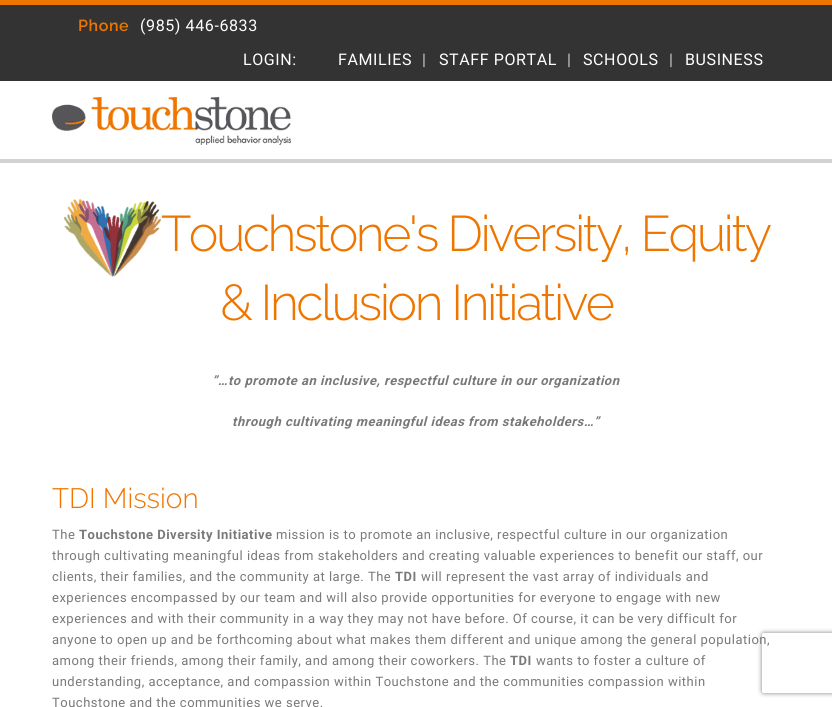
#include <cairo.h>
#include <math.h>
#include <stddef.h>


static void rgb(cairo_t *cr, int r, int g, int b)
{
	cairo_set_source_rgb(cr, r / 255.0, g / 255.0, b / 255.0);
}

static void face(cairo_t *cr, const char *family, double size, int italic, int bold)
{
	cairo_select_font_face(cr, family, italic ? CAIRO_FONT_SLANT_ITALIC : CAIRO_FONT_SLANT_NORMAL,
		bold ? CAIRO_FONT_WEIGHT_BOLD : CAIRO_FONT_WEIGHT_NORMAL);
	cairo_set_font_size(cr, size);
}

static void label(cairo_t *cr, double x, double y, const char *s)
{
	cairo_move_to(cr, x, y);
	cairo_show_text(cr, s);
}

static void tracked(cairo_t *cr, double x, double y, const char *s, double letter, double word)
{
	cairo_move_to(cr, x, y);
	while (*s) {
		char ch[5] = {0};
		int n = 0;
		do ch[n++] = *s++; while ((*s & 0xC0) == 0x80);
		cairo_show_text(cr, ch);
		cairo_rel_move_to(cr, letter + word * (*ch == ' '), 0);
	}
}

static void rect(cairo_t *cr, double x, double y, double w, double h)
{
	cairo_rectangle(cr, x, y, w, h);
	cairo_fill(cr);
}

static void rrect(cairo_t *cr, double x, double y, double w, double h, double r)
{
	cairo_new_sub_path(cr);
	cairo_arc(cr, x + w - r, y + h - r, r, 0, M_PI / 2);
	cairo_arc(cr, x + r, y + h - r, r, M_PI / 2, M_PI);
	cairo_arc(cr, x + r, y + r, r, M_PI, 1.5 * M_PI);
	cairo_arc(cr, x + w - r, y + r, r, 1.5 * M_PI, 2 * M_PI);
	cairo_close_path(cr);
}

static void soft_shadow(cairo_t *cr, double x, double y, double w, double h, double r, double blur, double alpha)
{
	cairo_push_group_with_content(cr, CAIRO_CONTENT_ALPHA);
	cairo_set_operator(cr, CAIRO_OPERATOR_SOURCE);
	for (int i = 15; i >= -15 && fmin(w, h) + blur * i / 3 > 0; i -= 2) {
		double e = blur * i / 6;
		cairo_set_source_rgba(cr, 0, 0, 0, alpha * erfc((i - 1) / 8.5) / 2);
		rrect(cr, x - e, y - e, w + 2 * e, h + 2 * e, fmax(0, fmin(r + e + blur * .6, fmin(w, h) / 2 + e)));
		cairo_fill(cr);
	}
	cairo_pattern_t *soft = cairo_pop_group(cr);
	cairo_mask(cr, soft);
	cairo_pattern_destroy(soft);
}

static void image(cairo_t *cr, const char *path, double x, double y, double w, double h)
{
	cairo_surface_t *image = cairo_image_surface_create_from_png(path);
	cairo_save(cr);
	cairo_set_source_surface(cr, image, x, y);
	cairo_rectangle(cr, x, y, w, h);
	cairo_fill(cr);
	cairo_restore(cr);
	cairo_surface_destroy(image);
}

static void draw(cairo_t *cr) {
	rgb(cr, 255, 255, 255);
	cairo_paint(cr);
	rgb(cr, 51, 51, 51);
	rect(cr, 0, 5, 832, 76);
	rgb(cr, 238, 118, 0);
	rect(cr, 0, 0, 832, 5);
	face(cr, "Raleway SemiBold", 16, 0, 0);
	tracked(cr, 78, 31, "Phone", 0.6, 0);
	face(cr, "Roboto", 16, 0, 0);
	rgb(cr, 255, 255, 255);
	tracked(cr, 140, 31, "(985) 446-6833", 0.6, 0);
	tracked(cr, 243, 65, "LOGIN:", 0.6, 0);
	tracked(cr, 338, 65, "FAMILIES", 0.6, 0);
	rgb(cr, 204, 204, 204);
	tracked(cr, 422, 65, "|", 0.6, 0);
	rgb(cr, 255, 255, 255);
	tracked(cr, 439, 65, "STAFF PORTAL", 0.6, 0);
	rgb(cr, 204, 204, 204);
	tracked(cr, 567, 65, "|", 0.6, 0);
	rgb(cr, 255, 255, 255);
	tracked(cr, 583, 65, "SCHOOLS", 0.6, 0);
	rgb(cr, 204, 204, 204);
	tracked(cr, 669, 65, "|", 0.6, 0);
	rgb(cr, 255, 255, 255);
	tracked(cr, 685, 65, "BUSINESS", 0.6, 0);
	rgb(cr, 210, 210, 210);
	rect(cr, 0, 159, 832, 4);
	image(cr, "image0.png", 52, 97, 239, 48);
	image(cr, "image1.png", 63, 198, 98, 79);
	face(cr, "Raleway Light", 50, 0, 0);
	rgb(cr, 238, 118, 0);
	tracked(cr, 161, 251, "Touchstone's Diversity, Equity", -2.5, 0);
	tracked(cr, 220, 320, "& Inclusion Initiative", -2.5, 0);
	face(cr, "Roboto", 13, 1, 1);
	rgb(cr, 121, 121, 121);
	tracked(cr, 212, 385, "”…to promote an inclusive, respectful culture in our organization", 0.5, 0);
	tracked(cr, 232, 426, "through cultivating meaningful ideas from stakeholders…”", 0.5, 0);
	face(cr, "Raleway Light", 28, 0, 0);
	rgb(cr, 238, 118, 0);
	label(cr, 52, 508, "TDI Mission");
	face(cr, "Roboto", 13, 0, 0);
	rgb(cr, 121, 121, 121);
	tracked(cr, 52, 539, "The", 0.5, 0);
	face(cr, "Roboto", 13, 0, 1);
	tracked(cr, 79, 539, "Touchstone Diversity Initiative", 0.5, 0);
	face(cr, "Roboto", 13, 0, 0);
	tracked(cr, 276, 539, "mission is to promote an inclusive, respectful culture in our organization", 0.5, 0);
	tracked(cr, 52, 560, "through cultivating meaningful ideas from stakeholders and creating valuable experiences to benefit our staff, our", 0.5, 0);
	tracked(cr, 52, 581, "clients, their families, and the community at large. The", 0.5, 0);
	face(cr, "Roboto", 13, 0, 1);
	tracked(cr, 395, 581, "TDI", 0.5, 0);
	face(cr, "Roboto", 13, 0, 0);
	tracked(cr, 421, 581, "will represent the vast array of individuals and", 0.5, 0);
	tracked(cr, 52, 602, "experiences encompassed by our team and will also provide opportunities for everyone to engage with new", 0.5, 0);
	tracked(cr, 52, 623, "experiences and with their community in a way they may not have before. Of course, it can be very difficult for", 0.5, 0);
	tracked(cr, 52, 644, "anyone to open up and be forthcoming about what makes them different and unique among the general population,", 0.5, 0);
	tracked(cr, 52, 665, "among their friends, among their family, and among their coworkers. The", 0.5, 0);
	face(cr, "Roboto", 13, 0, 1);
	tracked(cr, 510, 665, "TDI", 0.5, 0);
	face(cr, "Roboto", 13, 0, 0);
	tracked(cr, 536, 665, "wants to foster a culture of", 0.5, 0);
	tracked(cr, 52, 686, "understanding, acceptance, and compassion within Touchstone and the communities compassion within", 0.5, 0);
	tracked(cr, 52, 707, "Touchstone and the communities we serve.", 0.5, 0);
	cairo_save(cr);
	cairo_set_fill_rule(cr, CAIRO_FILL_RULE_EVEN_ODD);
	cairo_new_path(cr);
	cairo_move_to(cr, 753, 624);
	cairo_line_to(cr, 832, 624);
	cairo_line_to(cr, 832, 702);
	cairo_line_to(cr, 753, 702);
	cairo_close_path(cr);
	cairo_move_to(cr, 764, 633);
	cairo_line_to(cr, 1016, 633);
	cairo_curve_to(cr, 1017, 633, 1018, 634, 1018, 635);
	cairo_line_to(cr, 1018, 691);
	cairo_curve_to(cr, 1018, 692, 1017, 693, 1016, 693);
	cairo_line_to(cr, 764, 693);
	cairo_curve_to(cr, 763, 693, 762, 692, 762, 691);
	cairo_line_to(cr, 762, 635);
	cairo_curve_to(cr, 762, 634, 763, 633, 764, 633);
	cairo_close_path(cr);
	cairo_clip(cr);
	rgb(cr, 128, 128, 128);
	soft_shadow(cr, 762, 633, 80, 60, 2, 2.5, 1);
	cairo_restore(cr);
}

int main(void) {
	cairo_surface_t *surface = cairo_image_surface_create(CAIRO_FORMAT_RGB24, 832, 707);
	cairo_t *cr = cairo_create(surface);
	cairo_font_options_t *options = cairo_font_options_create();
	cairo_font_options_set_hint_metrics(options, CAIRO_HINT_METRICS_OFF);
	cairo_font_options_set_hint_style(options, CAIRO_HINT_STYLE_NONE);
	cairo_set_font_options(cr, options);
	cairo_set_miter_limit(cr, 4);
	draw(cr);
	cairo_surface_write_to_png(surface, "render.png");
	cairo_font_options_destroy(options);
	cairo_destroy(cr);
	cairo_surface_destroy(surface);
	return 0;
}
